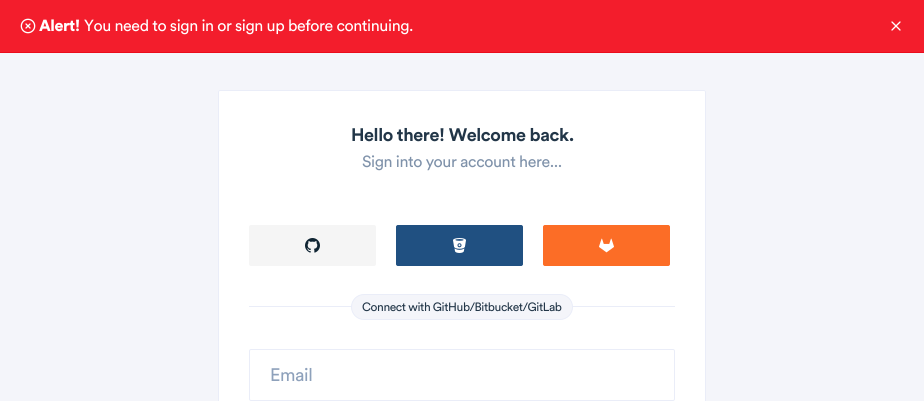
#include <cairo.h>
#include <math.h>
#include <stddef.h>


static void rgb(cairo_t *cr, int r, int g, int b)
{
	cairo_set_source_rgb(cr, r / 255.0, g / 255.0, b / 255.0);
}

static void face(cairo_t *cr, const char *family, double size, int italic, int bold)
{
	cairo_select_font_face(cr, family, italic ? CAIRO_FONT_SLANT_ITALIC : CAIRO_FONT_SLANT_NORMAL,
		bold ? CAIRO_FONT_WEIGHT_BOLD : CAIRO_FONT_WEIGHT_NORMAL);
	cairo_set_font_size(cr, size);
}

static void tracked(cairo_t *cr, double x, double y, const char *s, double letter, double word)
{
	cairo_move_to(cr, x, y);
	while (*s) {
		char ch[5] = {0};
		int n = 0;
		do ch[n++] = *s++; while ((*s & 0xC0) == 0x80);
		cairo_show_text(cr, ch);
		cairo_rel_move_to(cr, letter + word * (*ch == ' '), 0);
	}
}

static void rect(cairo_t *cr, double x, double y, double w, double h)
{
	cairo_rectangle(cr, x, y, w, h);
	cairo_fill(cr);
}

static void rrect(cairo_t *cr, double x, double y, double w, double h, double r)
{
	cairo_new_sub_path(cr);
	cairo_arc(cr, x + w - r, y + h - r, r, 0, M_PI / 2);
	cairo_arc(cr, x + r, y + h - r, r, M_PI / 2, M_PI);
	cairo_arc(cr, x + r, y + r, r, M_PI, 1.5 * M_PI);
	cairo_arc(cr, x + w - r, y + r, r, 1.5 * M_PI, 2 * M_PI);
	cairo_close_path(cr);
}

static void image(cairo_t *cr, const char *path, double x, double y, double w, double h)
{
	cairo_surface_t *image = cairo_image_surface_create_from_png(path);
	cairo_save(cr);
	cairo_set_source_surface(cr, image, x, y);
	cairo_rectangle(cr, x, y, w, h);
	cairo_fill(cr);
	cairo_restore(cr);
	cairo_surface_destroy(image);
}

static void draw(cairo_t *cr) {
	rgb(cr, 244, 245, 250);
	cairo_paint(cr);
	rgb(cr, 243, 29, 44);
	rect(cr, 0, 0, 924, 52);
	rgb(cr, 234, 12, 28);
	rect(cr, 0, 52, 924, 1);
	image(cr, "image0.png", 20, 18, 16, 16);
	face(cr, "Circular Black", 16, 0, 0);
	rgb(cr, 255, 255, 255);
	tracked(cr, 39, 31, "Alert!", -0.4, 0);
	face(cr, "Circular", 16, 0, 0);
	tracked(cr, 84, 31, "You need to sign in or sign up before continuing.", -0.4, 0);
	image(cr, "image1.png", 891, 21, 10, 10);
	cairo_new_path(cr);
	cairo_move_to(cr, 220, 90);
	cairo_line_to(cr, 704, 90);
	cairo_curve_to(cr, 705, 90, 706, 91, 706, 92);
	cairo_line_to(cr, 706, 401);
	cairo_line_to(cr, 218, 401);
	cairo_line_to(cr, 218, 92);
	cairo_curve_to(cr, 218, 91, 219, 90, 220, 90);
	cairo_close_path(cr);
	cairo_fill(cr);
	rrect(cr, 218.5, 90.5, 487, 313, 1.5);
	rgb(cr, 234, 237, 248);
	cairo_set_line_width(cr, 1);
	cairo_stroke(cr);
	face(cr, "Circular", 18, 0, 1);
	rgb(cr, 34, 54, 72);
	tracked(cr, 351, 141, "Hello there! Welcome back.", -0.4, 0);
	face(cr, "Circular", 16, 0, 0);
	rgb(cr, 127, 146, 170);
	tracked(cr, 362, 167, "Sign into your account here...", -0.4, 0);
	rgb(cr, 245, 245, 245);
	rrect(cr, 249, 225, 127, 41, 2);
	cairo_fill(cr);
	image(cr, "image2.png", 305, 238, 15, 15);
	rgb(cr, 32, 80, 129);
	rrect(cr, 396.5, 225.5, 126, 40, 1.5);
	cairo_fill_preserve(cr);
	cairo_stroke(cr);
	image(cr, "image3.png", 453, 238, 13, 15);
	rgb(cr, 252, 109, 38);
	rrect(cr, 543.5, 225.5, 126, 40, 1.5);
	cairo_fill_preserve(cr);
	cairo_stroke(cr);
	image(cr, "image4.png", 599, 238, 15, 15);
	rgb(cr, 234, 237, 248);
	rect(cr, 249, 306, 426, 1);
	rgb(cr, 244, 245, 250);
	rrect(cr, 351.5, 294.5, 221, 25, 12.5);
	cairo_fill_preserve(cr);
	rgb(cr, 234, 237, 248);
	cairo_stroke(cr);
	face(cr, "Circular", 12, 0, 0);
	rgb(cr, 34, 54, 72);
	tracked(cr, 362, 311, "Connect with GitHub/Bitbucket/GitLab", -0.4, 0);
	rrect(cr, 249.5, 349.5, 425, 51, 1.5);
	rgb(cr, 234, 237, 248);
	cairo_stroke(cr);
	face(cr, "Circular", 18, 0, 0);
	rgb(cr, 142, 161, 187);
	tracked(cr, 270, 381, "Email", -0.4, 0);
}

int main(void) {
	cairo_surface_t *surface = cairo_image_surface_create(CAIRO_FORMAT_RGB24, 924, 401);
	cairo_t *cr = cairo_create(surface);
	cairo_font_options_t *options = cairo_font_options_create();
	cairo_font_options_set_hint_metrics(options, CAIRO_HINT_METRICS_OFF);
	cairo_font_options_set_hint_style(options, CAIRO_HINT_STYLE_NONE);
	cairo_set_font_options(cr, options);
	cairo_set_miter_limit(cr, 4);
	draw(cr);
	cairo_surface_write_to_png(surface, "render.png");
	cairo_font_options_destroy(options);
	cairo_destroy(cr);
	cairo_surface_destroy(surface);
	return 0;
}
